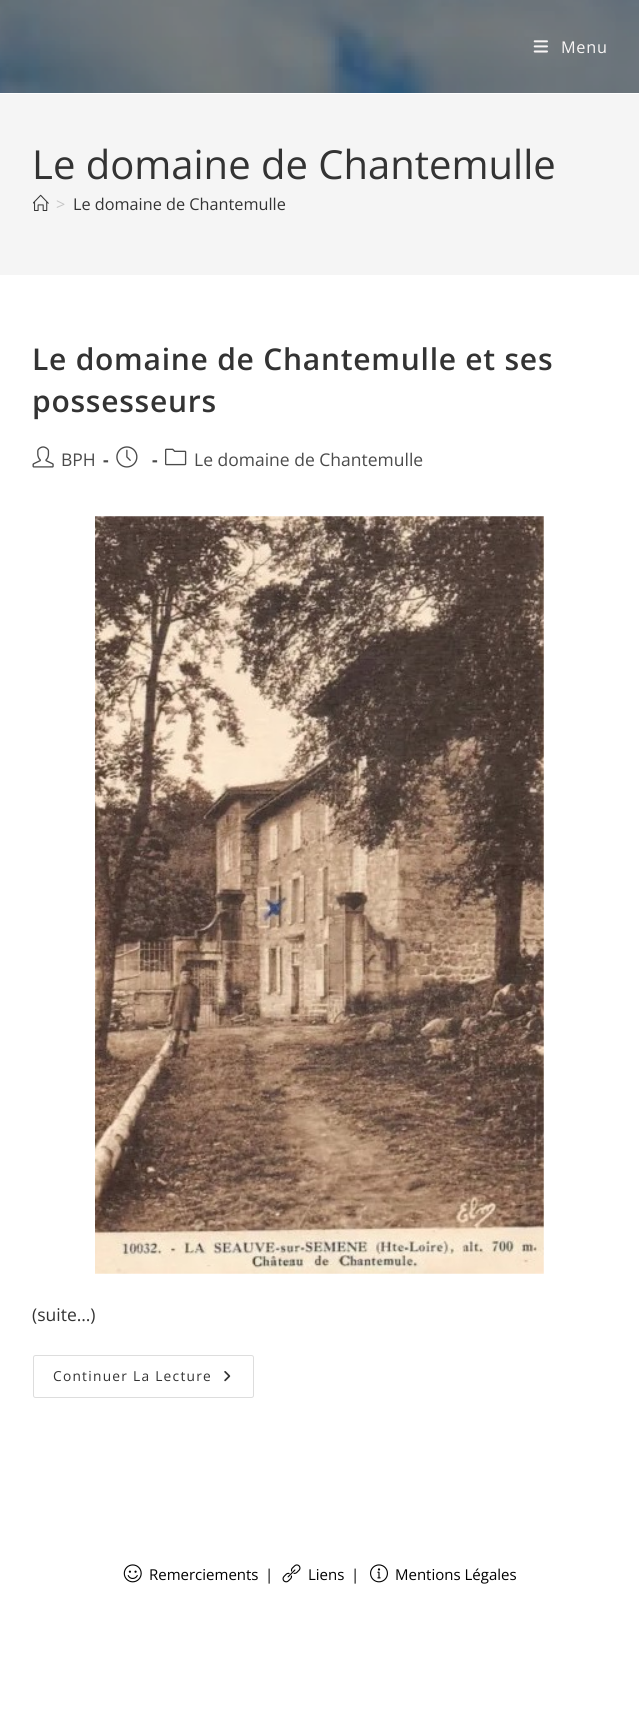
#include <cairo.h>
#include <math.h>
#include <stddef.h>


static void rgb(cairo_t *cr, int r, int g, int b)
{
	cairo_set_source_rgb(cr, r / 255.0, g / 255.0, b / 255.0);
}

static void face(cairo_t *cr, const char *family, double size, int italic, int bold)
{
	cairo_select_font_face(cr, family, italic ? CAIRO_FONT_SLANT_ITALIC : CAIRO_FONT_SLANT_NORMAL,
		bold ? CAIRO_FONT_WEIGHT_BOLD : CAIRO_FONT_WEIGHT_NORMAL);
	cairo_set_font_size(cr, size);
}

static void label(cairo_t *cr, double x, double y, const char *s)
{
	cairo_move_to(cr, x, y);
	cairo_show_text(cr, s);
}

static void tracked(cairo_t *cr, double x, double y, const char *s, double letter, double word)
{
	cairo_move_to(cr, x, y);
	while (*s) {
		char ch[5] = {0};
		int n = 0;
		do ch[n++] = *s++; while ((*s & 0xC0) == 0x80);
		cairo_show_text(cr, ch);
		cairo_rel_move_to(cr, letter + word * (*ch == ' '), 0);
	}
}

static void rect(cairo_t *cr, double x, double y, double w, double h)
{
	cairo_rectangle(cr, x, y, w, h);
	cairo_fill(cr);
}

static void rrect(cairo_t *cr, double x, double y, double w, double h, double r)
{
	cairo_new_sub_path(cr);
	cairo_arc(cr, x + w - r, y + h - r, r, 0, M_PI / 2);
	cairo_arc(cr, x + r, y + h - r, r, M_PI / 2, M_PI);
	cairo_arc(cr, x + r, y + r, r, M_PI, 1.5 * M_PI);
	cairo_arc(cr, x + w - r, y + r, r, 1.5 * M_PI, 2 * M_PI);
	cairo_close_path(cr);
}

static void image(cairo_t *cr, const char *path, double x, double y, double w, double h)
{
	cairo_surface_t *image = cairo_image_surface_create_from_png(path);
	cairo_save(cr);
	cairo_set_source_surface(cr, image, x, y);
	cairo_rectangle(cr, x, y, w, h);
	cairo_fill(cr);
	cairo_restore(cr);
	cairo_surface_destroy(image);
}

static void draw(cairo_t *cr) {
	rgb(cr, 255, 255, 255);
	cairo_paint(cr);
	image(cr, "image0.png", 0, 0, 639, 93);
	image(cr, "image1.png", 533, 40, 15, 13);
	face(cr, "Open Sans", 16.25, 0, 0);
	rgb(cr, 249, 246, 246);
	tracked(cr, 561, 53, "Menu", 0.75, 0);
	rgb(cr, 245, 245, 245);
	rect(cr, 0, 94, 639, 181);
	face(cr, "Open Sans", 40, 0, 0);
	rgb(cr, 51, 51, 51);
	label(cr, 32, 179, "Le domaine de Chantemulle");
	image(cr, "image2.png", 33, 194, 16, 17);
	face(cr, "Open Sans", 16.25, 0, 0);
	rgb(cr, 198, 198, 198);
	label(cr, 56, 210, ">");
	rgb(cr, 51, 51, 51);
	label(cr, 73, 210, "Le domaine de Chantemulle");
	face(cr, "Open Sans SemiBold", 30, 0, 0);
	tracked(cr, 32, 370, "Le domaine de Chantemulle et ses", 0.75, 0);
	tracked(cr, 32, 412, "possesseurs", 0.75, 0);
	image(cr, "image3.png", 32, 446, 22, 22);
	face(cr, "Open Sans", 17.5, 0, 0);
	rgb(cr, 74, 74, 74);
	label(cr, 61, 466, "BPH");
	face(cr, "Open Sans", 17.5, 0, 1);
	label(cr, 103, 466, "-");
	image(cr, "image4.png", 116, 446, 22, 22);
	label(cr, 152, 466, "-");
	image(cr, "image5.png", 165, 448, 22, 18);
	face(cr, "Open Sans", 17.5, 0, 0);
	label(cr, 194, 466, "Le domaine de Chantemulle");
	image(cr, "image6.png", 95, 516, 449, 758);
	rgb(cr, 51, 51, 51);
	label(cr, 32, 1321, "(suite…)");
	rrect(cr, 33.5, 1355.5, 220, 42, 2);
	rgb(cr, 221, 221, 221);
	cairo_set_line_width(cr, 1);
	cairo_stroke(cr);
	face(cr, "Open Sans", 13.75, 0, 0);
	rgb(cr, 51, 51, 51);
	tracked(cr, 53, 1381, "Continuer La Lecture", 1.25, 0);
	image(cr, "image7.png", 224, 1371, 7, 11);
	image(cr, "image8.png", 123, 1564, 19, 19);
	face(cr, "Open Sans", 15, 0, 0);
	rgb(cr, 0, 0, 0);
	label(cr, 149, 1580, "Remerciements");
	label(cr, 265, 1580, "|");
	image(cr, "image9.png", 282, 1564, 19, 19);
	label(cr, 308, 1580, "Liens");
	label(cr, 351, 1580, "|");
	image(cr, "image10.png", 370, 1564, 18, 19);
	label(cr, 395, 1580, "Mentions Légales");
}

int main(void) {
	cairo_surface_t *surface = cairo_image_surface_create(CAIRO_FORMAT_RGB24, 639, 1715);
	cairo_t *cr = cairo_create(surface);
	cairo_font_options_t *options = cairo_font_options_create();
	cairo_font_options_set_hint_metrics(options, CAIRO_HINT_METRICS_OFF);
	cairo_font_options_set_hint_style(options, CAIRO_HINT_STYLE_NONE);
	cairo_set_font_options(cr, options);
	cairo_set_miter_limit(cr, 4);
	draw(cr);
	cairo_surface_write_to_png(surface, "render.png");
	cairo_font_options_destroy(options);
	cairo_destroy(cr);
	cairo_surface_destroy(surface);
	return 0;
}
